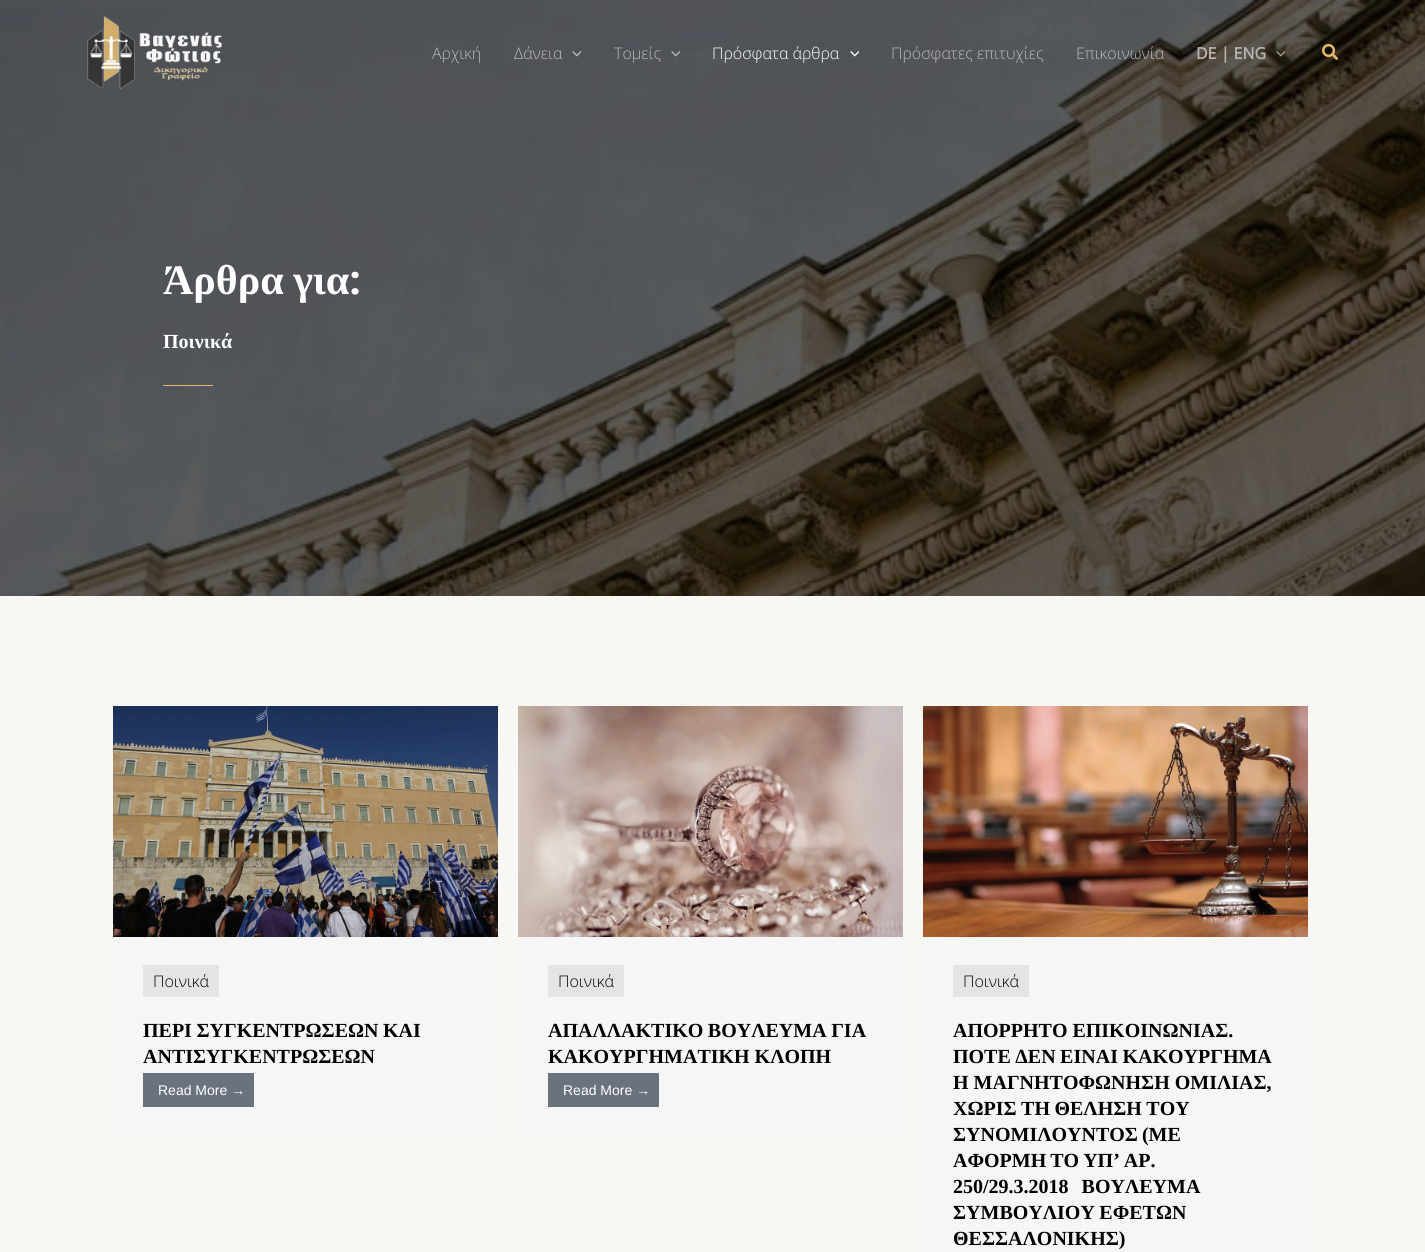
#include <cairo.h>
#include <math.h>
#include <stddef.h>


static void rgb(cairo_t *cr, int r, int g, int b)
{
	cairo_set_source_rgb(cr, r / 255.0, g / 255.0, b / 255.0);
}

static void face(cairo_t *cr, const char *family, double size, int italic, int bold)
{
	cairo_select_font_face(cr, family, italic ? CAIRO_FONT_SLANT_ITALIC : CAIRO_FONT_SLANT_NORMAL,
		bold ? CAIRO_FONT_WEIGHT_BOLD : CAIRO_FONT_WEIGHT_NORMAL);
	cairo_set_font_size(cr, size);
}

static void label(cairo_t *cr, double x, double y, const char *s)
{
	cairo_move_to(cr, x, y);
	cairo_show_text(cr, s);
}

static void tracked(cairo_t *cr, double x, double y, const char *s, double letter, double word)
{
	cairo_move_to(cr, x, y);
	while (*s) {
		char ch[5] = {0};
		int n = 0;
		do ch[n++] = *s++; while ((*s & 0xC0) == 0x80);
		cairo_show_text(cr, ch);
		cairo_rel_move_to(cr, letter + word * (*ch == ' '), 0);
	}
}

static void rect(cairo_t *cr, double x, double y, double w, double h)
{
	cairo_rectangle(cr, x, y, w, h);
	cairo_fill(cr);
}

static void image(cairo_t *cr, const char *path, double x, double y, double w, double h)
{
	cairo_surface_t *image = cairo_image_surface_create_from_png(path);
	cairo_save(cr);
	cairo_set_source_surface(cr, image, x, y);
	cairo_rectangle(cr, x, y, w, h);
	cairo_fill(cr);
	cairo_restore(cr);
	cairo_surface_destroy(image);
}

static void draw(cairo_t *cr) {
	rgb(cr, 249, 247, 243);
	cairo_paint(cr);
	image(cr, "image6.png", 0, 0, 1425, 596);
	image(cr, "image0.png", 87, 16, 135, 73);
	face(cr, "Open Sans Light", 16, 0, 0);
	rgb(cr, 184, 185, 187);
	label(cr, 432, 59, "Αρχική");
	label(cr, 514, 59, "Δάνεια");
	image(cr, "image1.png", 572, 51, 10, 6);
	label(cr, 614, 59, "Τομείς");
	image(cr, "image2.png", 671, 51, 9, 6);
	rgb(cr, 255, 255, 255);
	label(cr, 712, 59, "Πρόσφατα άρθρα");
	image(cr, "image3.png", 850, 51, 9, 6);
	rgb(cr, 184, 185, 187);
	label(cr, 891, 59, "Πρόσφατες επιτυχίες");
	label(cr, 1076, 59, "Επικοινωνία");
	face(cr, "Open Sans", 16, 0, 1);
	rgb(cr, 185, 183, 179);
	label(cr, 1196, 59, "DE | ENG");
	image(cr, "image4.png", 1276, 51, 10, 6);
	image(cr, "image5.png", 1322, 43, 16, 17);
	face(cr, "Liberation Serif", 42, 0, 1);
	rgb(cr, 255, 255, 255);
	tracked(cr, 163, 294, "Άρθρα για", 0, -1);
	face(cr, "Playfair Display", 42, 0, 1);
	label(cr, 349, 294, ":");
	face(cr, "Liberation Serif", 20, 0, 1);
	label(cr, 163, 348, "Ποινικά");
	rgb(cr, 227, 185, 105);
	rect(cr, 163, 385, 50, 1);
	rgb(cr, 246, 246, 246);
	rect(cr, 113, 937, 385, 200);
	image(cr, "image7.png", 113, 706, 385, 231);
	rgb(cr, 228, 228, 228);
	rect(cr, 143, 965, 76, 32);
	face(cr, "Open Sans Light", 16, 0, 0);
	rgb(cr, 0, 0, 0);
	label(cr, 153, 987, "Ποινικά");
	face(cr, "Liberation Serif", 20, 0, 1);
	tracked(cr, 143, 1037, "ΠΕΡΙ ΣΥΓΚΕΝΤΡΩΣΕΩΝ ΚΑΙ", 0, -0.5);
	label(cr, 143, 1063, "ΑΝΤΙΣΥΓΚΕΝΤΡΩΣΕΩΝ");
	rgb(cr, 105, 114, 125);
	rect(cr, 143, 1073, 111, 34);
	face(cr, "Liberation Sans", 14, 0, 0);
	rgb(cr, 255, 255, 255);
	label(cr, 158, 1095, "Read More →");
	rgb(cr, 246, 246, 246);
	rect(cr, 518, 937, 385, 200);
	image(cr, "image8.png", 518, 706, 385, 231);
	rgb(cr, 228, 228, 228);
	rect(cr, 548, 965, 76, 32);
	face(cr, "Open Sans Light", 16, 0, 0);
	rgb(cr, 0, 0, 0);
	label(cr, 558, 987, "Ποινικά");
	face(cr, "Liberation Serif", 20, 0, 1);
	tracked(cr, 548, 1037, "ΑΠΑΛΛΑΚΤΙΚΟ ΒΟΥΛΕΥΜΑ ΓΙΑ", 0, -0.5);
	label(cr, 548, 1063, "ΚΑΚΟΥΡΓΗΜΑΤΙΚΗ ΚΛΟΠΗ");
	rgb(cr, 105, 114, 125);
	rect(cr, 548, 1073, 111, 34);
	face(cr, "Liberation Sans", 14, 0, 0);
	rgb(cr, 255, 255, 255);
	label(cr, 563, 1095, "Read More →");
	rgb(cr, 246, 246, 246);
	rect(cr, 923, 937, 385, 315);
	image(cr, "image9.png", 923, 706, 385, 231);
	rgb(cr, 228, 228, 228);
	rect(cr, 953, 965, 76, 32);
	face(cr, "Open Sans Light", 16, 0, 0);
	rgb(cr, 0, 0, 0);
	label(cr, 963, 987, "Ποινικά");
	face(cr, "Liberation Serif", 20, 0, 1);
	label(cr, 953, 1037, "ΑΠΟΡΡΗΤΟ ΕΠΙΚΟΙΝΩΝΙΑΣ.");
	tracked(cr, 953, 1063, "ΠΟΤΕ ΔΕΝ ΕΙΝΑΙ ΚΑΚΟΥΡΓΗΜΑ", 0, -0.5);
	label(cr, 953, 1089, "Η ΜΑΓΝΗΤΟΦΩΝΗΣΗ ΟΜΙΛΙΑΣ,");
	tracked(cr, 953, 1115, "ΧΩΡΙΣ ΤΗ ΘΕΛΗΣΗ ΤΟΥ", 0, -0.5);
	tracked(cr, 953, 1141, "ΣΥΝΟΜΙΛΟΥΝΤΟΣ (ΜΕ", 0, -1);
	tracked(cr, 953, 1167, "ΑΦΟΡΜΗ ΤΟ ΥΠ’ ΑΡ.", 0, -1);
	tracked(cr, 953, 1193, "250/29.3.2018 ΒΟΥΛΕΥΜΑ", 0, 8);
	tracked(cr, 953, 1219, "ΣΥΜΒΟΥΛΙΟΥ ΕΦΕΤΩΝ", 0, -0.5);
	label(cr, 953, 1245, "ΘΕΣΣΑΛΟΝΙΚΗΣ)");
}

int main(void) {
	cairo_surface_t *surface = cairo_image_surface_create(CAIRO_FORMAT_RGB24, 1425, 1252);
	cairo_t *cr = cairo_create(surface);
	cairo_font_options_t *options = cairo_font_options_create();
	cairo_font_options_set_hint_metrics(options, CAIRO_HINT_METRICS_OFF);
	cairo_font_options_set_hint_style(options, CAIRO_HINT_STYLE_NONE);
	cairo_set_font_options(cr, options);
	cairo_set_miter_limit(cr, 4);
	draw(cr);
	cairo_surface_write_to_png(surface, "render.png");
	cairo_font_options_destroy(options);
	cairo_destroy(cr);
	cairo_surface_destroy(surface);
	return 0;
}
